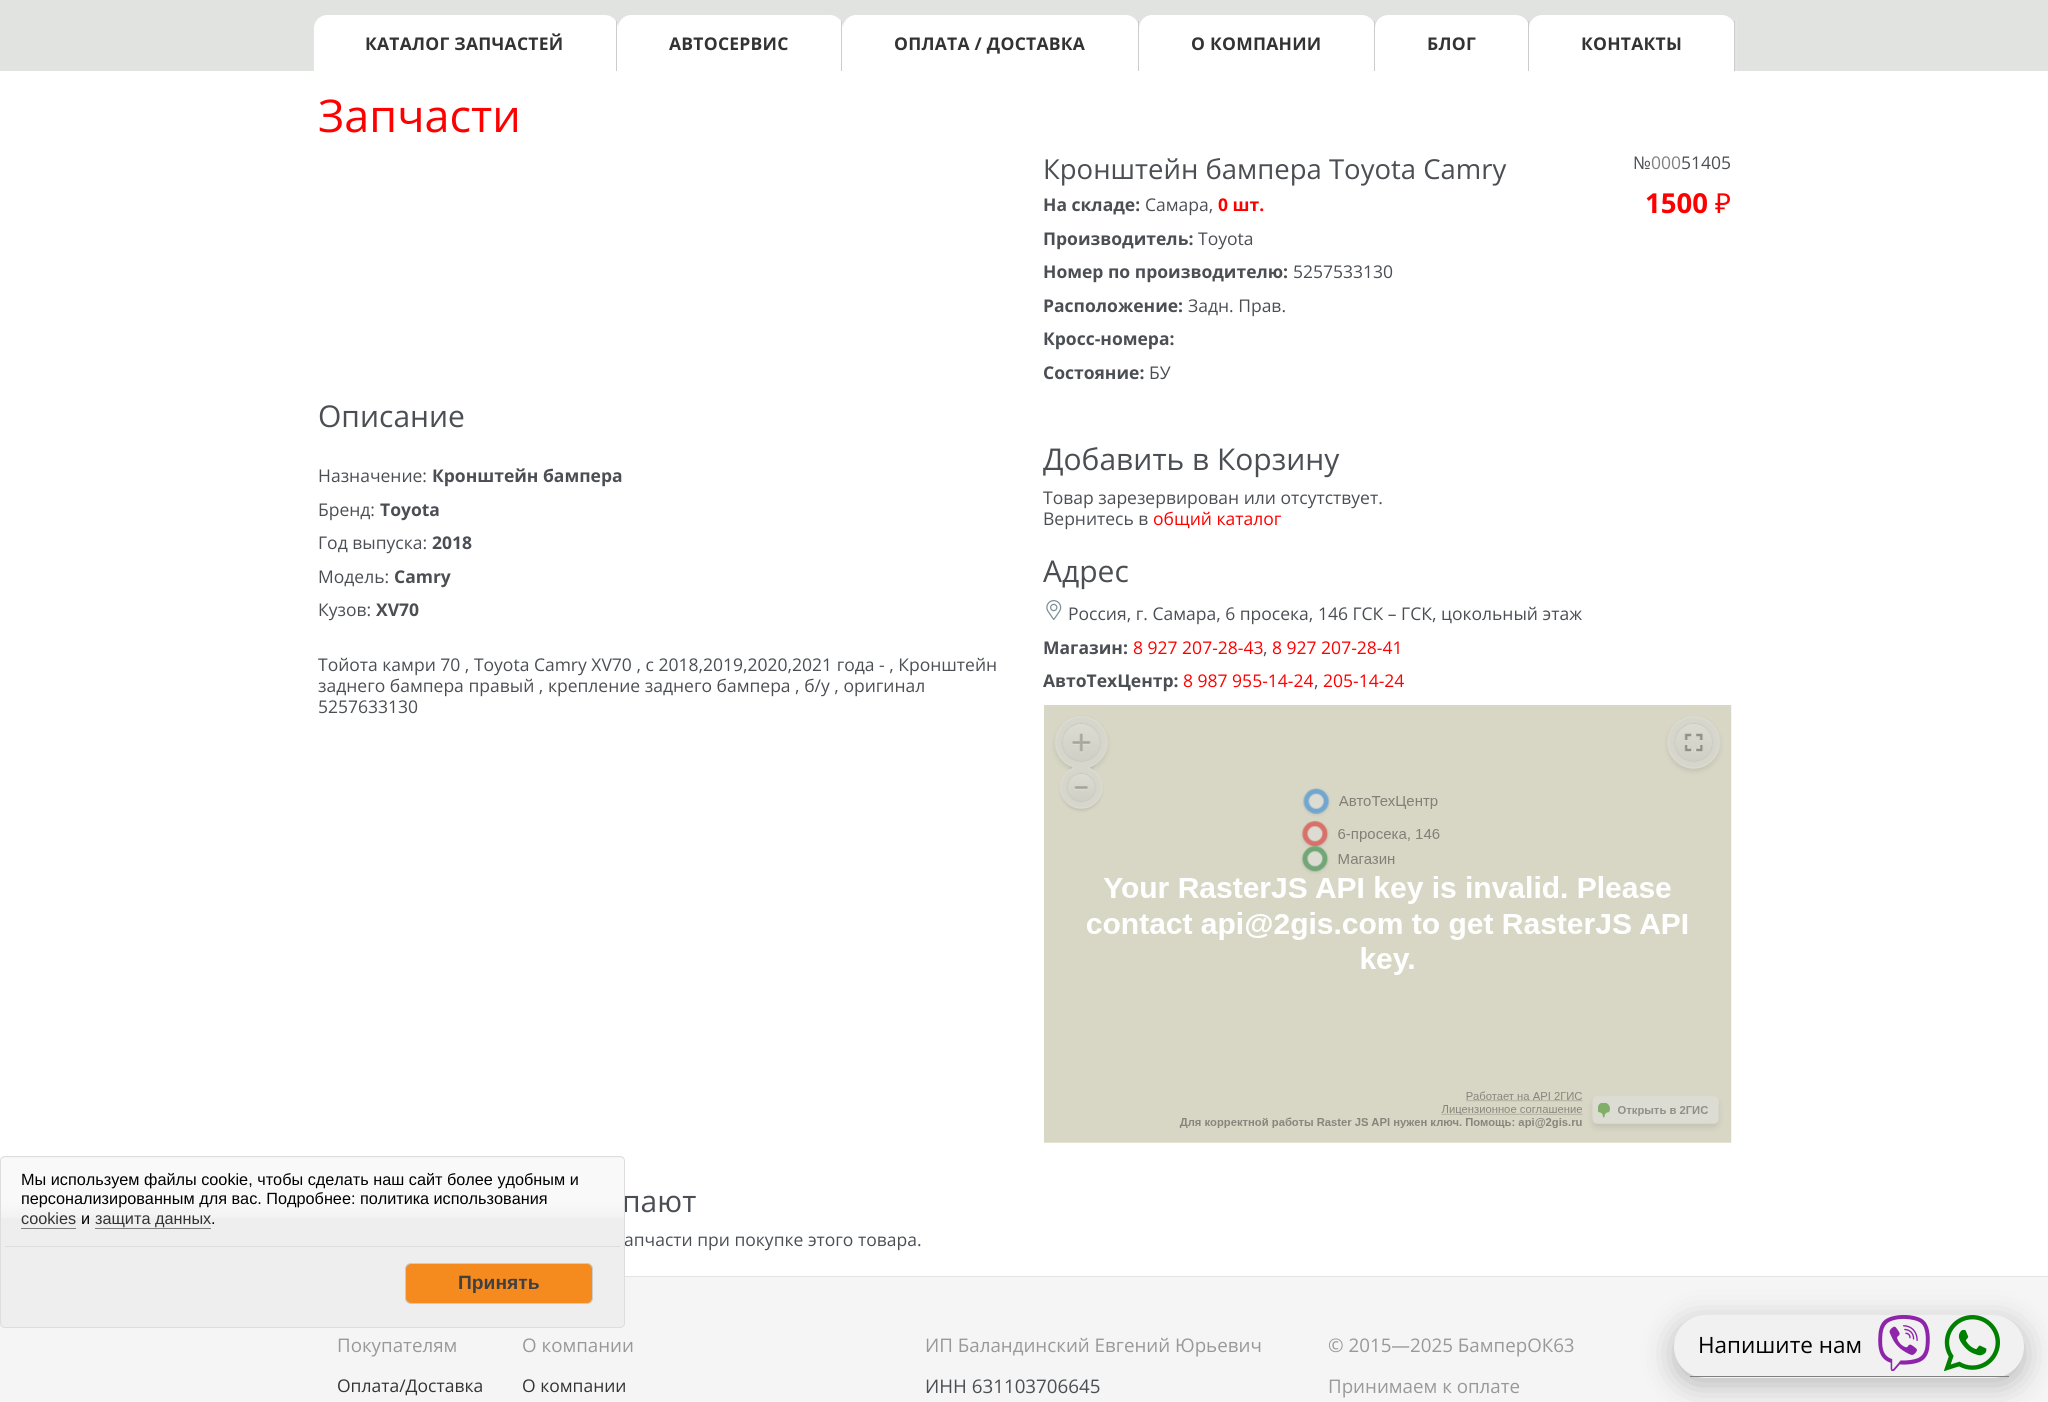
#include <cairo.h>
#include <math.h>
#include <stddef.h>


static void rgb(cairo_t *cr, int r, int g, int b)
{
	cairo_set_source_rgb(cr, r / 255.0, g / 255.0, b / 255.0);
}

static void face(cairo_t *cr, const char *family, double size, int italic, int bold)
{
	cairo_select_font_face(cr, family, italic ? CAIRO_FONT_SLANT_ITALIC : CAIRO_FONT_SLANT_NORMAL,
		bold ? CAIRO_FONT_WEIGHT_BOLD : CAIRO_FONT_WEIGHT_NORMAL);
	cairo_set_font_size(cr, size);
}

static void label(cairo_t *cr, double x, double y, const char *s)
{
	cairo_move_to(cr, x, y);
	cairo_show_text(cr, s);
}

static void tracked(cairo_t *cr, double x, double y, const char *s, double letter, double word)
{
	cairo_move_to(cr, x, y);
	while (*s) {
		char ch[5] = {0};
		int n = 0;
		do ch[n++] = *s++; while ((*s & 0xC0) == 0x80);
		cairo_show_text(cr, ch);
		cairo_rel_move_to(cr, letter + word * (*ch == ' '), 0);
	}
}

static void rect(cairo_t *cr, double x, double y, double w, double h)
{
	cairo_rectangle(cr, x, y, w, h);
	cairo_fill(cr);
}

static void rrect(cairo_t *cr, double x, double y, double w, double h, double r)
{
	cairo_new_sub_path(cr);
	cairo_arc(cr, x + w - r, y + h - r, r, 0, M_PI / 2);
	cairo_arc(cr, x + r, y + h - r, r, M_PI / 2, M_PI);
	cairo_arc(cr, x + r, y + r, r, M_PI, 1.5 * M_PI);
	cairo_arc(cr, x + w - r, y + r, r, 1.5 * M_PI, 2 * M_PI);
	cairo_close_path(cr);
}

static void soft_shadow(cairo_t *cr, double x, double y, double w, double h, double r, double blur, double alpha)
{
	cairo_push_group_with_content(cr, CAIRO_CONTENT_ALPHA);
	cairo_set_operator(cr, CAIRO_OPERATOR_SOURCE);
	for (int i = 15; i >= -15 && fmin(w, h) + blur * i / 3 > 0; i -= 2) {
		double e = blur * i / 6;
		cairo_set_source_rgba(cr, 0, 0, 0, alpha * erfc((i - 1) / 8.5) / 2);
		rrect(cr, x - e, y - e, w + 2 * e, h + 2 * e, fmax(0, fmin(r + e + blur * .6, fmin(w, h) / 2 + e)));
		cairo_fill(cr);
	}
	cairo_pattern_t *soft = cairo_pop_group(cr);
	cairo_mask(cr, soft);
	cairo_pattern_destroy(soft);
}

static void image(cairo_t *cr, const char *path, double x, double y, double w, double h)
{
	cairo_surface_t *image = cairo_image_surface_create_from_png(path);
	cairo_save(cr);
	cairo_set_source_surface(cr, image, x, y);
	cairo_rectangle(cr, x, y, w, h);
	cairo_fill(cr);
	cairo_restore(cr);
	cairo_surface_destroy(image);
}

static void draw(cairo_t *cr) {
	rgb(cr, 255, 255, 255);
	cairo_paint(cr);
	rgb(cr, 224, 227, 224);
	rect(cr, 0, 0, 2048, 71);
	rgb(cr, 229, 229, 229);
	rect(cr, 1736, 15, 1, 56);
	rect(cr, 313, 15, 1, 56);
	rgb(cr, 255, 255, 255);
	cairo_new_path(cr);
	cairo_move_to(cr, 327, 15);
	cairo_line_to(cr, 605, 15);
	cairo_curve_to(cr, 612, 15, 618, 21, 618, 28);
	cairo_line_to(cr, 618, 71);
	cairo_line_to(cr, 314, 71);
	cairo_line_to(cr, 314, 28);
	cairo_curve_to(cr, 314, 21, 320, 15, 327, 15);
	cairo_close_path(cr);
	cairo_fill(cr);
	rgb(cr, 204, 204, 204);
	rect(cr, 616, 21, 1, 50);
	face(cr, "Open Sans", 17.5, 0, 1);
	rgb(cr, 51, 51, 51);
	tracked(cr, 365, 50, "КАТАЛОГ ЗАПЧАСТЕЙ", 0.25, 0);
	rgb(cr, 255, 255, 255);
	cairo_new_path(cr);
	cairo_move_to(cr, 631, 15);
	cairo_line_to(cr, 830, 15);
	cairo_curve_to(cr, 837, 15, 843, 21, 843, 28);
	cairo_line_to(cr, 843, 71);
	cairo_line_to(cr, 618, 71);
	cairo_line_to(cr, 618, 28);
	cairo_curve_to(cr, 618, 21, 624, 15, 631, 15);
	cairo_close_path(cr);
	cairo_fill(cr);
	rgb(cr, 204, 204, 204);
	rect(cr, 841, 21, 1, 50);
	rgb(cr, 51, 51, 51);
	tracked(cr, 669, 50, "АВТОСЕРВИС", 0.25, 0);
	rgb(cr, 255, 255, 255);
	cairo_new_path(cr);
	cairo_move_to(cr, 856, 15);
	cairo_line_to(cr, 1126, 15);
	cairo_curve_to(cr, 1133, 15, 1139, 21, 1139, 28);
	cairo_line_to(cr, 1139, 71);
	cairo_line_to(cr, 843, 71);
	cairo_line_to(cr, 843, 28);
	cairo_curve_to(cr, 843, 21, 849, 15, 856, 15);
	cairo_close_path(cr);
	cairo_fill(cr);
	rgb(cr, 204, 204, 204);
	rect(cr, 1138, 21, 1, 50);
	rgb(cr, 51, 51, 51);
	tracked(cr, 894, 50, "ОПЛАТА / ДОСТАВКА", 0.25, 0);
	rgb(cr, 255, 255, 255);
	cairo_new_path(cr);
	cairo_move_to(cr, 1152, 15);
	cairo_line_to(cr, 1362, 15);
	cairo_curve_to(cr, 1369, 15, 1375, 21, 1375, 28);
	cairo_line_to(cr, 1375, 71);
	cairo_line_to(cr, 1139, 71);
	cairo_line_to(cr, 1139, 28);
	cairo_curve_to(cr, 1139, 21, 1145, 15, 1152, 15);
	cairo_close_path(cr);
	cairo_fill(cr);
	rgb(cr, 204, 204, 204);
	rect(cr, 1374, 21, 1, 50);
	rgb(cr, 51, 51, 51);
	tracked(cr, 1191, 50, "О КОМПАНИИ", 0.25, 0);
	rgb(cr, 255, 255, 255);
	cairo_new_path(cr);
	cairo_move_to(cr, 1388, 15);
	cairo_line_to(cr, 1516, 15);
	cairo_curve_to(cr, 1523, 15, 1529, 21, 1529, 28);
	cairo_line_to(cr, 1529, 71);
	cairo_line_to(cr, 1375, 71);
	cairo_line_to(cr, 1375, 28);
	cairo_curve_to(cr, 1375, 21, 1381, 15, 1388, 15);
	cairo_close_path(cr);
	cairo_fill(cr);
	rgb(cr, 204, 204, 204);
	rect(cr, 1528, 21, 1, 50);
	rgb(cr, 51, 51, 51);
	tracked(cr, 1427, 50, "БЛОГ", 0.25, 0);
	rgb(cr, 255, 255, 255);
	cairo_new_path(cr);
	cairo_move_to(cr, 1542, 15);
	cairo_line_to(cr, 1722, 15);
	cairo_curve_to(cr, 1729, 15, 1735, 21, 1735, 28);
	cairo_line_to(cr, 1735, 71);
	cairo_line_to(cr, 1529, 71);
	cairo_line_to(cr, 1529, 28);
	cairo_curve_to(cr, 1529, 21, 1535, 15, 1542, 15);
	cairo_close_path(cr);
	cairo_fill(cr);
	rgb(cr, 204, 204, 204);
	rect(cr, 1734, 21, 1, 50);
	rgb(cr, 51, 51, 51);
	tracked(cr, 1581, 50, "КОНТАКТЫ", 0.25, 0);
	face(cr, "Open Sans", 30, 0, 0);
	rgb(cr, 75, 79, 84);
	label(cr, 622, 1212, "пают");
	face(cr, "Open Sans", 17.5, 0, 0);
	label(cr, 624, 1246, "апчасти при покупке этого товара.");
	rgb(cr, 245, 245, 245);
	rect(cr, 0, 1277, 2048, 125);
	rgb(cr, 238, 238, 238);
	rrect(cr, 0, 1156, 625, 172, 5);
	cairo_fill(cr);
	image(cr, "image0.png", 0, 1157, 625, 61);
	rrect(cr, 0.5, 1156.5, 624, 171, 4.5);
	rgb(cr, 221, 221, 221);
	cairo_set_line_width(cr, 1);
	cairo_stroke(cr);
	face(cr, "Liberation Sans", 16.25, 0, 0);
	rgb(cr, 0, 0, 0);
	label(cr, 21, 1185, "Мы используем файлы cookie, чтобы сделать наш сайт более удобным и");
	label(cr, 21, 1204, "персонализированным для вас. Подробнее: политика использования");
	rgb(cr, 51, 51, 51);
	label(cr, 21, 1224, "cookies");
	rgb(cr, 128, 128, 128);
	rect(cr, 21, 1228, 55, 1);
	rgb(cr, 0, 0, 0);
	label(cr, 81, 1224, "и");
	rgb(cr, 51, 51, 51);
	label(cr, 95, 1224, "защита данных");
	rgb(cr, 128, 128, 128);
	rect(cr, 95, 1228, 116, 1);
	rgb(cr, 0, 0, 0);
	label(cr, 211, 1224, ".");
	rgb(cr, 221, 221, 221);
	rect(cr, 5, 1246, 615, 1);
	rgb(cr, 245, 138, 31);
	rrect(cr, 405.5, 1263.5, 187, 40, 5.5);
	cairo_fill_preserve(cr);
	rgb(cr, 204, 204, 204);
	cairo_stroke(cr);
	face(cr, "Liberation Sans", 19.25, 0, 1);
	rgb(cr, 64, 64, 65);
	label(cr, 458, 1289, "Принять");
	face(cr, "Open Sans", 45, 0, 0);
	rgb(cr, 255, 0, 0);
	label(cr, 318, 132, "Запчасти");
	face(cr, "Open Sans", 30, 0, 0);
	rgb(cr, 75, 79, 84);
	label(cr, 318, 427, "Описание");
	face(cr, "Open Sans", 17.5, 0, 0);
	label(cr, 318, 482, "Назначение:");
	face(cr, "Open Sans", 17.5, 0, 1);
	label(cr, 432, 482, "Кронштейн бампера");
	face(cr, "Open Sans", 17.5, 0, 0);
	label(cr, 318, 516, "Бренд:");
	face(cr, "Open Sans", 17.5, 0, 1);
	label(cr, 380, 516, "Toyota");
	face(cr, "Open Sans", 17.5, 0, 0);
	label(cr, 318, 549, "Год выпуска:");
	face(cr, "Open Sans", 17.5, 0, 1);
	label(cr, 432, 549, "2018");
	face(cr, "Open Sans", 17.5, 0, 0);
	label(cr, 318, 583, "Модель:");
	face(cr, "Open Sans", 17.5, 0, 1);
	label(cr, 394, 583, "Camry");
	face(cr, "Open Sans", 17.5, 0, 0);
	label(cr, 318, 616, "Кузов:");
	face(cr, "Open Sans", 17.5, 0, 1);
	label(cr, 376, 616, "XV70");
	face(cr, "Open Sans", 17.5, 0, 0);
	label(cr, 318, 671, "Тойота камри 70 , Toyota Camry XV70 , с 2018,2019,2020,2021 года - , Кронштейн");
	label(cr, 318, 692, "заднего бампера правый , крепление заднего бампера , б/у , оригинал");
	label(cr, 318, 713, "5257633130");
	face(cr, "Open Sans", 27.5, 0, 0);
	label(cr, 1043, 179, "Кронштейн бампера Toyota Camry");
	face(cr, "Open Sans", 17.5, 0, 0);
	label(cr, 1633, 169, "№");
	rgb(cr, 128, 128, 128);
	label(cr, 1651, 169, "000");
	rgb(cr, 75, 79, 84);
	label(cr, 1681, 169, "51405");
	face(cr, "Open Sans", 27.5, 0, 1);
	rgb(cr, 255, 0, 0);
	label(cr, 1645, 213, "1500");
	face(cr, "Noto Sans", 27.5, 0, 0);
	label(cr, 1715, 213, "₽");
	face(cr, "Open Sans", 17.5, 0, 1);
	rgb(cr, 75, 79, 84);
	label(cr, 1043, 211, "На складе:");
	face(cr, "Open Sans", 17.5, 0, 0);
	label(cr, 1145, 211, "Самара,");
	face(cr, "Open Sans", 17.5, 0, 1);
	rgb(cr, 255, 0, 0);
	label(cr, 1218, 211, "0 шт.");
	rgb(cr, 75, 79, 84);
	label(cr, 1043, 245, "Производитель:");
	face(cr, "Open Sans", 17.5, 0, 0);
	label(cr, 1198, 245, "Toyota");
	face(cr, "Open Sans", 17.5, 0, 1);
	label(cr, 1043, 278, "Номер по производителю:");
	face(cr, "Open Sans", 17.5, 0, 0);
	label(cr, 1293, 278, "5257533130");
	face(cr, "Open Sans", 17.5, 0, 1);
	label(cr, 1043, 312, "Расположение:");
	face(cr, "Open Sans", 17.5, 0, 0);
	label(cr, 1188, 312, "Задн. Прав.");
	face(cr, "Open Sans", 17.5, 0, 1);
	label(cr, 1043, 345, "Кросс-номера:");
	label(cr, 1043, 379, "Состояние:");
	face(cr, "Open Sans", 17.5, 0, 0);
	label(cr, 1149, 379, "БУ");
	face(cr, "Open Sans", 30, 0, 0);
	label(cr, 1043, 470, "Добавить в Корзину");
	face(cr, "Open Sans", 17.5, 0, 0);
	label(cr, 1043, 504, "Товар зарезервирован или отсутствует.");
	label(cr, 1043, 525, "Вернитесь в");
	rgb(cr, 255, 0, 0);
	label(cr, 1153, 525, "общий каталог");
	face(cr, "Open Sans", 30, 0, 0);
	rgb(cr, 75, 79, 84);
	label(cr, 1043, 582, "Адрес");
	image(cr, "image1.png", 1046, 600, 16, 20);
	face(cr, "Open Sans", 17.5, 0, 0);
	label(cr, 1068, 620, "Россия, г. Самара, 6 просека, 146 ГСК – ГСК, цокольный этаж");
	face(cr, "Open Sans", 17.5, 0, 1);
	label(cr, 1043, 654, "Магазин:");
	face(cr, "Open Sans", 17.5, 0, 0);
	rgb(cr, 255, 0, 0);
	label(cr, 1133, 654, "8 927 207-28-43");
	rgb(cr, 75, 79, 84);
	label(cr, 1263, 654, ",");
	rgb(cr, 255, 0, 0);
	label(cr, 1272, 654, "8 927 207-28-41");
	face(cr, "Open Sans", 17.5, 0, 1);
	rgb(cr, 75, 79, 84);
	label(cr, 1043, 687, "АвтоТехЦентр:");
	face(cr, "Open Sans", 17.5, 0, 0);
	rgb(cr, 255, 0, 0);
	label(cr, 1183, 687, "8 987 955-14-24");
	rgb(cr, 75, 79, 84);
	label(cr, 1314, 687, ",");
	rgb(cr, 255, 0, 0);
	label(cr, 1323, 687, "205-14-24");
	image(cr, "image2.png", 1044, 705, 688, 438);
	rgb(cr, 227, 227, 227);
	rect(cr, 625, 1276, 1423, 1);
	face(cr, "Open Sans", 18.75, 0, 0);
	rgb(cr, 153, 153, 153);
	label(cr, 337, 1352, "Покупателям");
	face(cr, "Open Sans", 17.5, 0, 0);
	rgb(cr, 51, 51, 51);
	label(cr, 337, 1392, "Оплата/Доставка");
	face(cr, "Open Sans", 18.75, 0, 0);
	rgb(cr, 153, 153, 153);
	label(cr, 522, 1352, "О компании");
	face(cr, "Open Sans", 17.5, 0, 0);
	rgb(cr, 51, 51, 51);
	label(cr, 522, 1392, "О компании");
	face(cr, "Open Sans", 18.75, 0, 0);
	rgb(cr, 153, 153, 153);
	label(cr, 925, 1352, "ИП Баландинский Евгений Юрьевич");
	rgb(cr, 75, 79, 84);
	label(cr, 925, 1393, "ИНН 631103706645");
	rgb(cr, 153, 153, 153);
	label(cr, 1328, 1352, "© 2015—2025 БамперОК63");
	label(cr, 1328, 1393, "Принимаем к оплате");
	rgb(cr, 0, 0, 0);
	soft_shadow(cr, 1674, 1323, 350, 62, 31, 15.5, 0.25);
	rgb(cr, 241, 241, 241);
	rrect(cr, 1674, 1315, 350, 63, 31.5);
	cairo_fill(cr);
	rgb(cr, 128, 128, 128);
	rect(cr, 1690, 1376, 319, 1);
	face(cr, "Open Sans", 22.5, 0, 0);
	rgb(cr, 0, 0, 0);
	label(cr, 1698, 1353, "Напишите нам");
	image(cr, "image3.png", 1878, 1315, 52, 56);
	image(cr, "image4.png", 1944, 1315, 56, 56);
}

int main(void) {
	cairo_surface_t *surface = cairo_image_surface_create(CAIRO_FORMAT_RGB24, 2048, 1402);
	cairo_t *cr = cairo_create(surface);
	cairo_font_options_t *options = cairo_font_options_create();
	cairo_font_options_set_hint_metrics(options, CAIRO_HINT_METRICS_OFF);
	cairo_font_options_set_hint_style(options, CAIRO_HINT_STYLE_NONE);
	cairo_set_font_options(cr, options);
	cairo_set_miter_limit(cr, 4);
	draw(cr);
	cairo_surface_write_to_png(surface, "render.png");
	cairo_font_options_destroy(options);
	cairo_destroy(cr);
	cairo_surface_destroy(surface);
	return 0;
}
